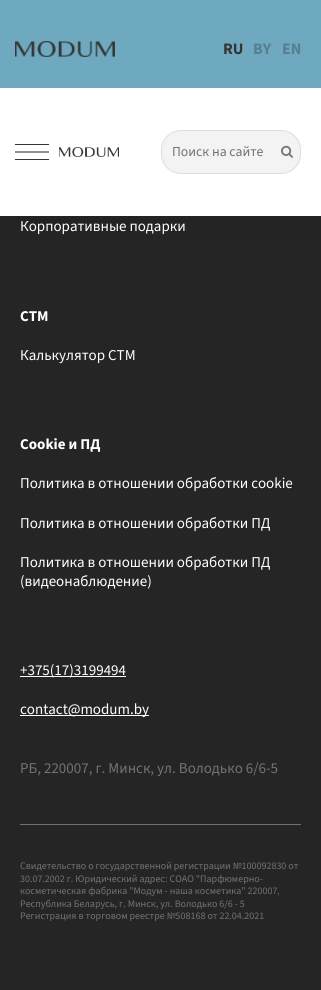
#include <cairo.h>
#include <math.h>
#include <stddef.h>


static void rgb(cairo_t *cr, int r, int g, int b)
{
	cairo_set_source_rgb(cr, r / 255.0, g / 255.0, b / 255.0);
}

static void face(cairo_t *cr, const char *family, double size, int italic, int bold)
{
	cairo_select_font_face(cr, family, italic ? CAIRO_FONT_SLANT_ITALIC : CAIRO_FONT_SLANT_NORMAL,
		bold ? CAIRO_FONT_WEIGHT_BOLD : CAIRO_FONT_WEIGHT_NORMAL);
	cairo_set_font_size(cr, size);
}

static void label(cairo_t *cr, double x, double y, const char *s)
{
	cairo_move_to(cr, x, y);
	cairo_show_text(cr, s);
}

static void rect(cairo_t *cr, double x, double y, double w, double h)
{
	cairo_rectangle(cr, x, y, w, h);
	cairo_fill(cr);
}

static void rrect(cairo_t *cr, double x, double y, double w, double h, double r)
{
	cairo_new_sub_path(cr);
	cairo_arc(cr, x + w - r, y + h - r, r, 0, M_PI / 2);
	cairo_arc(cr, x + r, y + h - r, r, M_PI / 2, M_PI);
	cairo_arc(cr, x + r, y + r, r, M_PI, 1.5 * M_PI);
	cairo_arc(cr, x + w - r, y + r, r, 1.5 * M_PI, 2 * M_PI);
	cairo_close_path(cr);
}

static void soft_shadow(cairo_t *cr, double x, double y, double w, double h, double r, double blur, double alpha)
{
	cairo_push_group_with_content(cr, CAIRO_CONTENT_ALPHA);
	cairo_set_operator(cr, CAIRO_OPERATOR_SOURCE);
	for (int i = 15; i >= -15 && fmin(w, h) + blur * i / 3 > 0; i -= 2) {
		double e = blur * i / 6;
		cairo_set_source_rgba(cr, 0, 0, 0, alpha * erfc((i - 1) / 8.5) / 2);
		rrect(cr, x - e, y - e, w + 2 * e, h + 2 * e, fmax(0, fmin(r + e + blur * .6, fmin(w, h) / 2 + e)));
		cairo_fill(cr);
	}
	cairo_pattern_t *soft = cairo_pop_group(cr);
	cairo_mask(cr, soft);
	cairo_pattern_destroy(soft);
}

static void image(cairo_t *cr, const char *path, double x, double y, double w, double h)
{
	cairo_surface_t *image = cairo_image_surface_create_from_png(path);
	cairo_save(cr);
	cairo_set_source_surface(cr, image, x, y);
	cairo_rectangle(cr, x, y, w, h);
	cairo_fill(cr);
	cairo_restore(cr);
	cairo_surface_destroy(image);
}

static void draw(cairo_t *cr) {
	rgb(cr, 37, 37, 37);
	cairo_paint(cr);
	rgb(cr, 0, 0, 0);
	soft_shadow(cr, 0, 5, 321, 216, 0, 15, 0.1);
	rgb(cr, 110, 169, 191);
	rect(cr, 0, 0, 321, 88);
	image(cr, "image0.png", 15, 41, 100, 16);
	face(cr, "Source Sans 3", 16, 0, 1);
	rgb(cr, 53, 53, 53);
	label(cr, 223, 54, "RU");
	rgb(cr, 87, 127, 144);
	label(cr, 253, 54, "BY");
	label(cr, 282, 54, "EN");
	rgb(cr, 255, 255, 255);
	rect(cr, 0, 88, 321, 128);
	rgb(cr, 53, 53, 53);
	rect(cr, 15, 144, 34, 1);
	cairo_new_path(cr);
	cairo_move_to(cr, 15, 152);
	cairo_line_to(cr, 49, 152);
	cairo_set_line_width(cr, 1.1);
	cairo_stroke(cr);
	rect(cr, 15, 159, 34, 1);
	image(cr, "image1.png", 59, 147, 60, 10);
	rgb(cr, 243, 243, 243);
	rrect(cr, 161.5, 130.5, 139, 43, 19.5);
	cairo_fill_preserve(cr);
	rgb(cr, 221, 221, 221);
	cairo_set_line_width(cr, 1);
	cairo_stroke(cr);
	face(cr, "Source Sans 3", 13.75, 0, 0);
	rgb(cr, 114, 114, 114);
	label(cr, 172, 156, "Поиск на сайте");
	image(cr, "image2.png", 281, 145, 12, 13);
	face(cr, "Source Sans 3", 15, 0, 0);
	rgb(cr, 255, 255, 255);
	label(cr, 20, 231, "Корпоративные подарки");
	face(cr, "Source Sans 3", 15, 0, 1);
	label(cr, 20, 321, "СТМ");
	face(cr, "Source Sans 3", 15, 0, 0);
	label(cr, 20, 360, "Калькулятор СТМ");
	face(cr, "Source Sans 3", 15, 0, 1);
	label(cr, 20, 449, "Cookie и ПД");
	face(cr, "Source Sans 3", 15, 0, 0);
	label(cr, 20, 488, "Политика в отношении обработки cookie");
	label(cr, 20, 528, "Политика в отношении обработки ПД");
	label(cr, 20, 567, "Политика в отношении обработки ПД");
	label(cr, 20, 586, "(видеонаблюдение)");
	rect(cr, 20, 676, 106, 1);
	label(cr, 20, 675, "+375(17)3199494");
	rect(cr, 20, 715, 129, 1);
	label(cr, 20, 714, "contact@modum.by");
	rgb(cr, 114, 114, 114);
	label(cr, 20, 773, "РБ, 220007, г. Минск, ул. Володько 6/6-5");
	rect(cr, 20, 824, 281, 1);
	face(cr, "Source Sans 3", 10, 0, 0);
	label(cr, 20, 869, "Свидетельство о государственной регистрации №100092830 от");
	label(cr, 20, 882, "30.07.2002 г. Юридический адрес: СОАО \"Парфюмерно-");
	label(cr, 20, 894, "косметическая фабрика \"Модум - наша косметика\" 220007,");
	label(cr, 20, 907, "Республика Беларусь, г. Минск, ул. Володько 6/6 - 5");
	label(cr, 20, 919, "Регистрация в торговом реестре №508168 от 22.04.2021");
}

int main(void) {
	cairo_surface_t *surface = cairo_image_surface_create(CAIRO_FORMAT_RGB24, 321, 990);
	cairo_t *cr = cairo_create(surface);
	cairo_font_options_t *options = cairo_font_options_create();
	cairo_font_options_set_hint_metrics(options, CAIRO_HINT_METRICS_OFF);
	cairo_font_options_set_hint_style(options, CAIRO_HINT_STYLE_NONE);
	cairo_set_font_options(cr, options);
	cairo_set_miter_limit(cr, 4);
	draw(cr);
	cairo_surface_write_to_png(surface, "render.png");
	cairo_font_options_destroy(options);
	cairo_destroy(cr);
	cairo_surface_destroy(surface);
	return 0;
}
